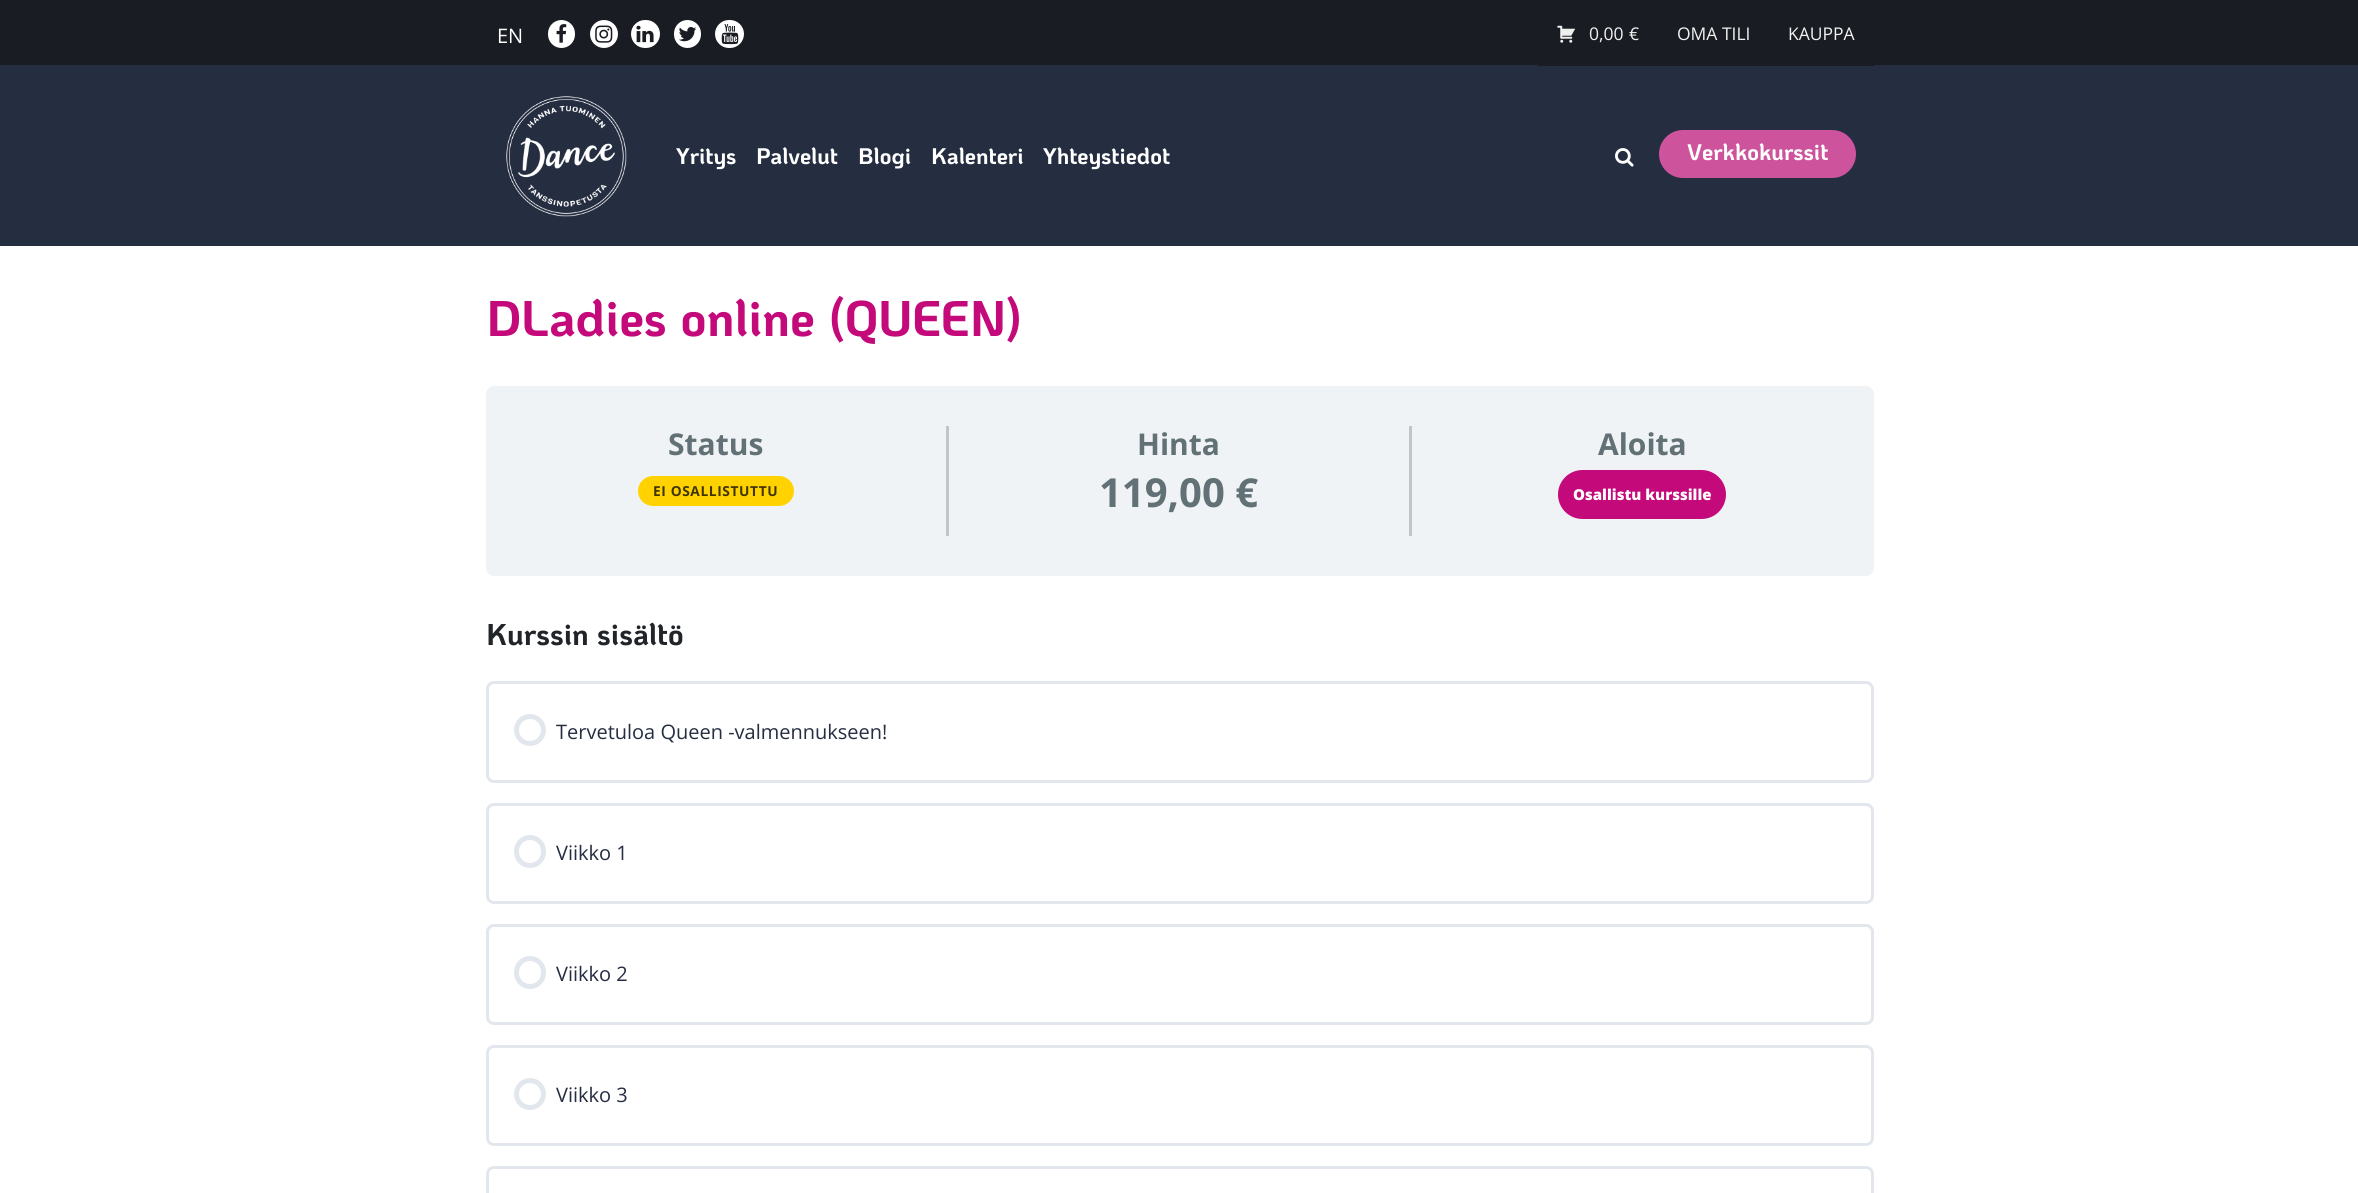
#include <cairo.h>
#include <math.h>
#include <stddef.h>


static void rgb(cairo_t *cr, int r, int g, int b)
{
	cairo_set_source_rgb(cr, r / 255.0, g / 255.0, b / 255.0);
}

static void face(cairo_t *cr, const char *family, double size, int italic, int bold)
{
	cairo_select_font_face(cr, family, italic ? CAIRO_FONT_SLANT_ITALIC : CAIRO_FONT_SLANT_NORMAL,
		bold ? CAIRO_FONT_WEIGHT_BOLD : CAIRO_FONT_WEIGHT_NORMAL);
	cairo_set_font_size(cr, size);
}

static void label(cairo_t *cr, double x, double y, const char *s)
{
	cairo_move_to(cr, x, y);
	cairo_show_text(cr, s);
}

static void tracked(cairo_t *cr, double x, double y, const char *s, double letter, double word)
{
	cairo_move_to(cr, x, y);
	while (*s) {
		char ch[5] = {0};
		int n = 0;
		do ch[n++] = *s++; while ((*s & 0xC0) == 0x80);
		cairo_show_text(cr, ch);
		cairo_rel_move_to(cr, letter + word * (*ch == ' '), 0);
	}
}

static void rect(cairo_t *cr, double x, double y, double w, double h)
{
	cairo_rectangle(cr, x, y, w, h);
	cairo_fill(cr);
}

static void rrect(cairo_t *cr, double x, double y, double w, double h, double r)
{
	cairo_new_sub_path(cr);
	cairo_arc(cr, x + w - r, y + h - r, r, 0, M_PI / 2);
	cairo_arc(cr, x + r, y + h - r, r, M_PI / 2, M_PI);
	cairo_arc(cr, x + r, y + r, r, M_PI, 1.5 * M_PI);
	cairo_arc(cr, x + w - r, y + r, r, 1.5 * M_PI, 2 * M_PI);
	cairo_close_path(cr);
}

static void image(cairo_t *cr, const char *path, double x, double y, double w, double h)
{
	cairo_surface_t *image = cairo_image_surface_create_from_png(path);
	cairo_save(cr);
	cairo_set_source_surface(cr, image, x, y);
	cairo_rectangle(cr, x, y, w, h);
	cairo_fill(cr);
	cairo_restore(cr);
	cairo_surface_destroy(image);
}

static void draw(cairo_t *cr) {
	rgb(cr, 255, 255, 255);
	cairo_paint(cr);
	rgb(cr, 25, 28, 34);
	rect(cr, 0, 0, 2358, 65);
	face(cr, "Open Sans", 20, 0, 0);
	rgb(cr, 255, 255, 255);
	label(cr, 497, 43, "EN");
	rrect(cr, 548, 20, 27, 28, 13.5);
	cairo_fill(cr);
	image(cr, "image0.png", 556, 24, 11, 19);
	cairo_arc(cr, 604, 34, 14, 0, 2 * M_PI);
	cairo_fill(cr);
	image(cr, "image1.png", 595, 25, 18, 18);
	rrect(cr, 631, 20, 29, 28, 14);
	cairo_fill(cr);
	image(cr, "image2.png", 636, 25, 18, 18);
	rrect(cr, 674, 20, 27, 28, 13.5);
	cairo_fill(cr);
	image(cr, "image3.png", 679, 27, 18, 15);
	rrect(cr, 715, 20, 29, 28, 14);
	cairo_fill(cr);
	image(cr, "image4.png", 721, 24, 18, 21);
	rgb(cr, 37, 45, 65);
	rect(cr, 0, 65, 2358, 181);
	rgb(cr, 25, 28, 34);
	rect(cr, 1538, 65, 336, 1);
	image(cr, "image5.png", 1557, 25, 19, 18);
	face(cr, "Open Sans", 17.5, 0, 0);
	rgb(cr, 241, 241, 241);
	label(cr, 1589, 40, "0,00");
	label(cr, 1629, 40, "€");
	label(cr, 1677, 40, "OMA TILI");
	label(cr, 1788, 40, "KAUPPA");
	image(cr, "image6.png", 506, 96, 121, 121);
	face(cr, "KoHo", 22.5, 0, 1);
	rgb(cr, 255, 255, 255);
	label(cr, 676, 164, "Yritys");
	label(cr, 756, 164, "Palvelut");
	label(cr, 858, 164, "Blogi");
	label(cr, 931, 164, "Kalenteri");
	label(cr, 1043, 164, "Yhteystiedot");
	rgb(cr, 204, 83, 156);
	rrect(cr, 1659, 130, 197, 48, 24);
	cairo_fill(cr);
	rgb(cr, 255, 255, 255);
	label(cr, 1687, 160, "Verkkokurssit");
	image(cr, "image7.png", 1615, 148, 19, 19);
	face(cr, "KoHo", 50, 0, 1);
	rgb(cr, 196, 9, 122);
	label(cr, 486, 336, "DLadies online (QUEEN)");
	rgb(cr, 240, 243, 246);
	rrect(cr, 486, 386, 1388, 190, 8);
	cairo_fill(cr);
	rgb(cr, 190, 197, 203);
	rect(cr, 946, 426, 3, 110);
	face(cr, "Open Sans", 30, 0, 1);
	rgb(cr, 97, 113, 117);
	label(cr, 668, 455, "Status");
	rgb(cr, 255, 210, 0);
	rrect(cr, 638, 476, 156, 30, 15);
	cairo_fill(cr);
	face(cr, "Open Sans", 13.75, 0, 1);
	rgb(cr, 64, 53, 0);
	tracked(cr, 653, 496, "EI OSALLISTUTTU", 0.6, 0);
	rgb(cr, 190, 197, 203);
	rect(cr, 1409, 426, 3, 110);
	face(cr, "Open Sans", 30, 0, 1);
	rgb(cr, 97, 113, 117);
	label(cr, 1137, 455, "Hinta");
	face(cr, "Open Sans", 40, 0, 1);
	label(cr, 1099, 507, "119,00 €");
	face(cr, "Open Sans", 30, 0, 1);
	label(cr, 1598, 455, "Aloita");
	rgb(cr, 196, 9, 122);
	rrect(cr, 1558, 470, 168, 49, 24.5);
	cairo_fill(cr);
	face(cr, "Open Sans ExtraBold", 15, 0, 0);
	rgb(cr, 255, 255, 255);
	label(cr, 1573, 500, "Osallistu kurssille");
	face(cr, "KoHo", 30, 0, 1);
	rgb(cr, 33, 37, 41);
	label(cr, 486, 645, "Kurssin sisältö");
	rrect(cr, 487.5, 682.5, 1385, 99, 6.5);
	rgb(cr, 226, 231, 237);
	cairo_set_line_width(cr, 3);
	cairo_stroke(cr);
	cairo_arc(cr, 530, 730, 13.5, 0, 2 * M_PI);
	cairo_set_line_width(cr, 5);
	cairo_stroke(cr);
	face(cr, "Open Sans", 20, 0, 0);
	rgb(cr, 37, 45, 65);
	label(cr, 556, 739, "Tervetuloa Queen -valmennukseen!");
	rrect(cr, 487.5, 804.5, 1385, 98, 6.5);
	rgb(cr, 226, 231, 237);
	cairo_set_line_width(cr, 3);
	cairo_stroke(cr);
	rrect(cr, 516.5, 837.5, 27, 28, 13.5);
	cairo_set_line_width(cr, 5);
	cairo_stroke(cr);
	rgb(cr, 37, 45, 65);
	label(cr, 556, 860, "Viikko 1");
	rrect(cr, 487.5, 925.5, 1385, 98, 6.5);
	rgb(cr, 226, 231, 237);
	cairo_set_line_width(cr, 3);
	cairo_stroke(cr);
	rrect(cr, 516.5, 958.5, 27, 28, 13.5);
	cairo_set_line_width(cr, 5);
	cairo_stroke(cr);
	rgb(cr, 37, 45, 65);
	label(cr, 556, 981, "Viikko 2");
	rrect(cr, 487.5, 1046.5, 1385, 98, 6.5);
	rgb(cr, 226, 231, 237);
	cairo_set_line_width(cr, 3);
	cairo_stroke(cr);
	cairo_arc(cr, 530, 1094, 13.5, 0, 2 * M_PI);
	cairo_set_line_width(cr, 5);
	cairo_stroke(cr);
	rgb(cr, 37, 45, 65);
	label(cr, 556, 1102, "Viikko 3");
	rrect(cr, 487.5, 1167.5, 1385, 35, 6.5);
	rgb(cr, 226, 231, 237);
	cairo_set_line_width(cr, 3);
	cairo_stroke(cr);
}

int main(void) {
	cairo_surface_t *surface = cairo_image_surface_create(CAIRO_FORMAT_RGB24, 2358, 1193);
	cairo_t *cr = cairo_create(surface);
	cairo_font_options_t *options = cairo_font_options_create();
	cairo_font_options_set_hint_metrics(options, CAIRO_HINT_METRICS_OFF);
	cairo_font_options_set_hint_style(options, CAIRO_HINT_STYLE_NONE);
	cairo_set_font_options(cr, options);
	cairo_set_miter_limit(cr, 4);
	draw(cr);
	cairo_surface_write_to_png(surface, "render.png");
	cairo_font_options_destroy(options);
	cairo_destroy(cr);
	cairo_surface_destroy(surface);
	return 0;
}
